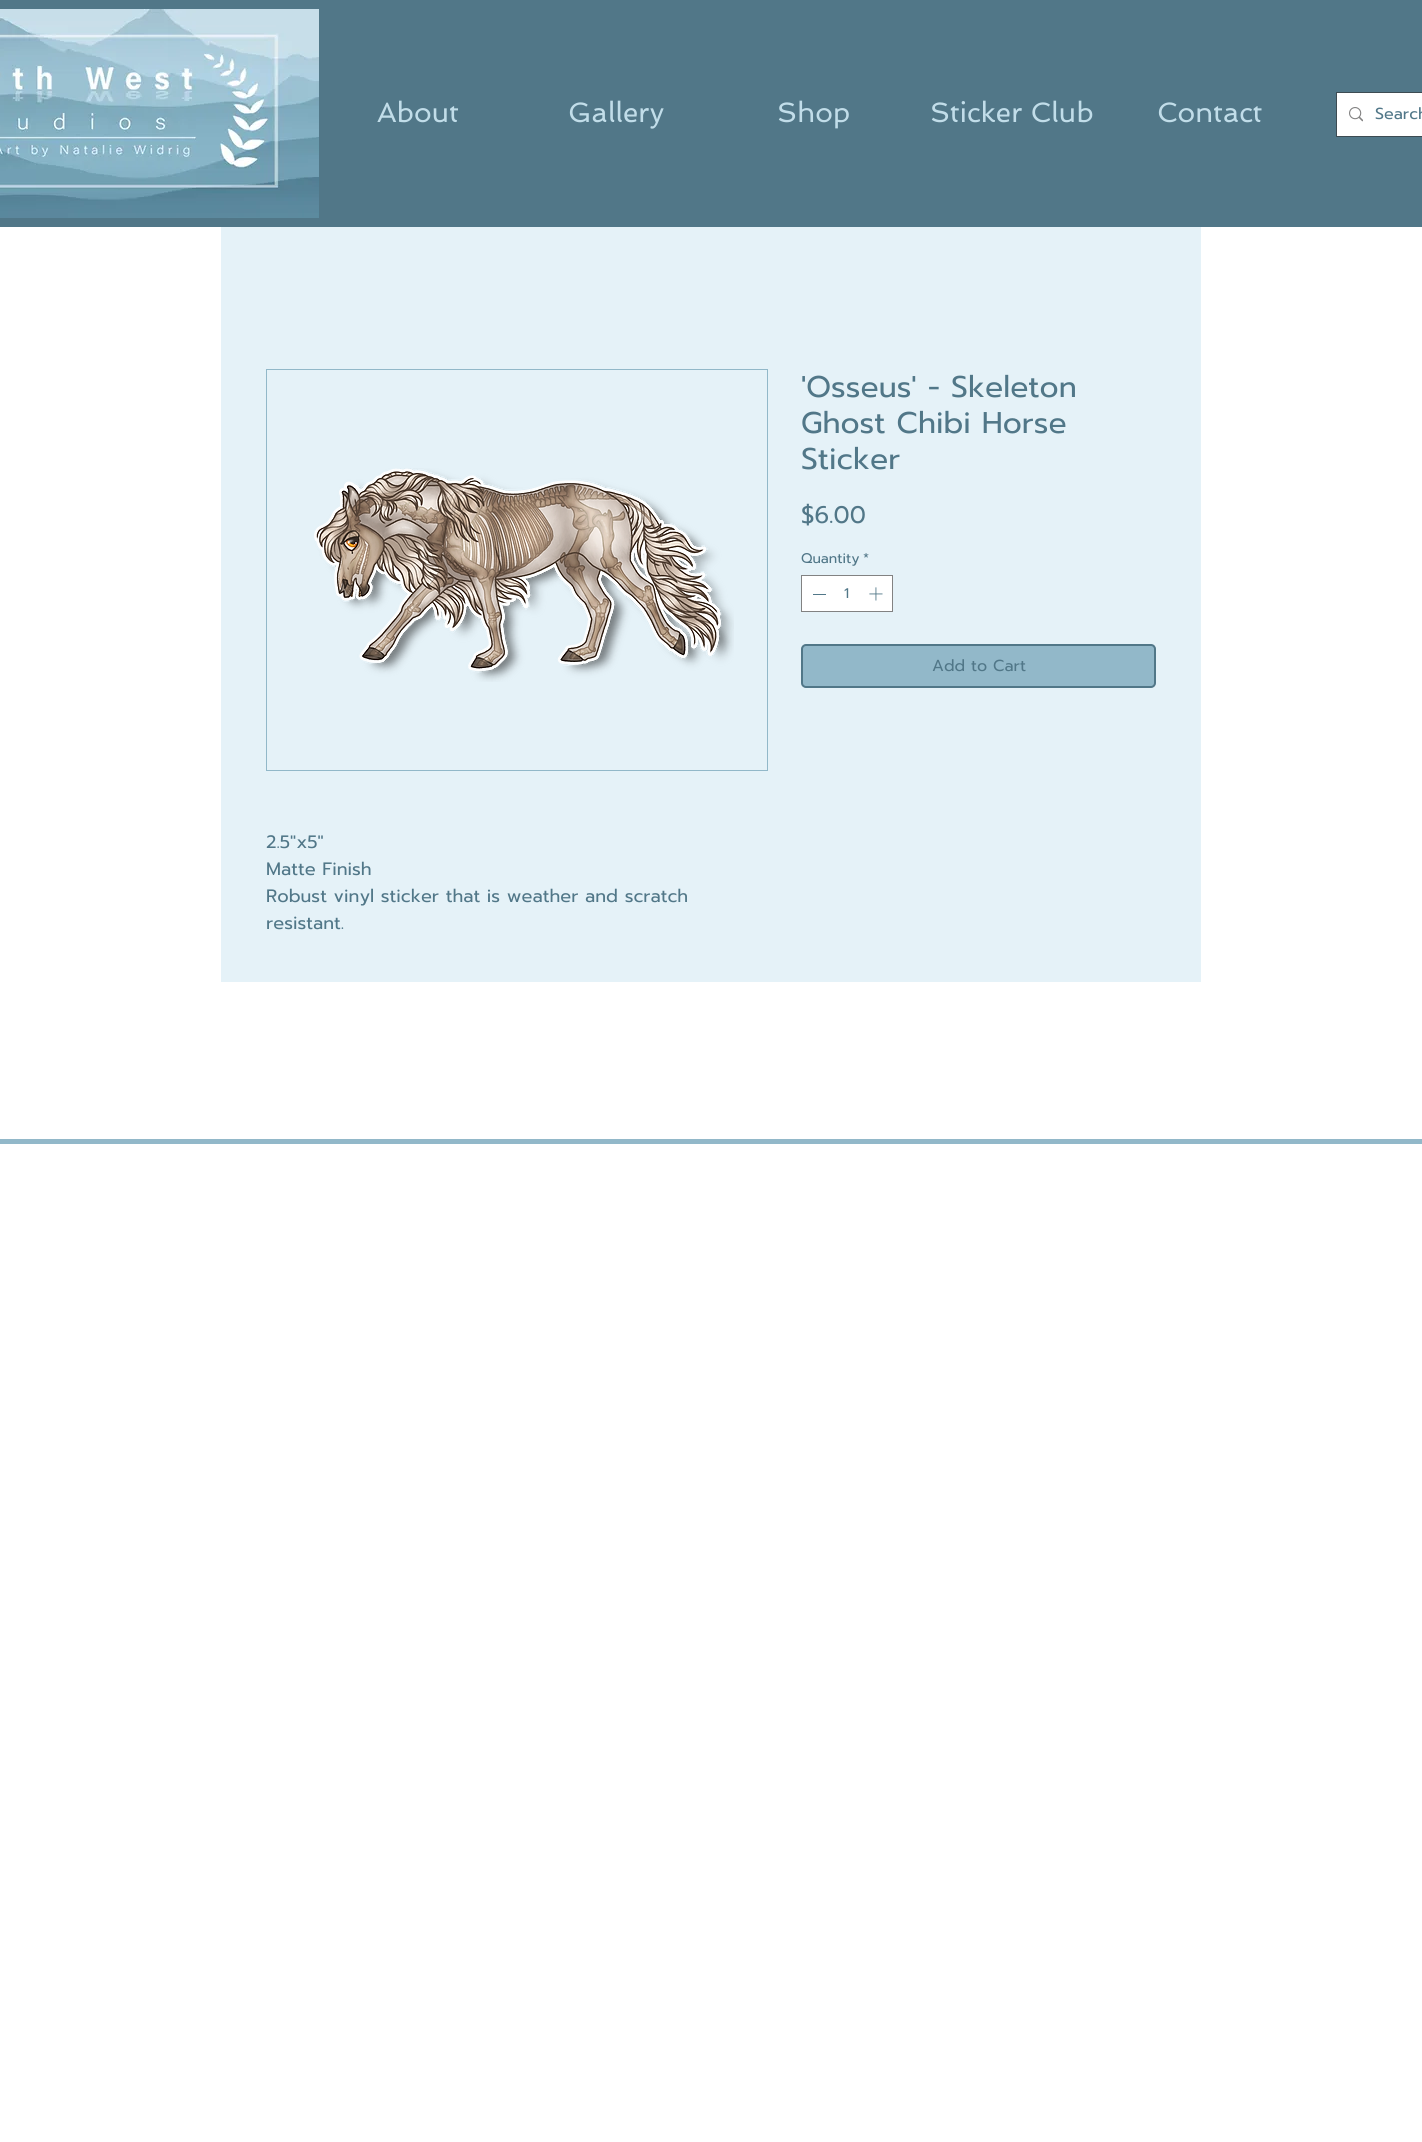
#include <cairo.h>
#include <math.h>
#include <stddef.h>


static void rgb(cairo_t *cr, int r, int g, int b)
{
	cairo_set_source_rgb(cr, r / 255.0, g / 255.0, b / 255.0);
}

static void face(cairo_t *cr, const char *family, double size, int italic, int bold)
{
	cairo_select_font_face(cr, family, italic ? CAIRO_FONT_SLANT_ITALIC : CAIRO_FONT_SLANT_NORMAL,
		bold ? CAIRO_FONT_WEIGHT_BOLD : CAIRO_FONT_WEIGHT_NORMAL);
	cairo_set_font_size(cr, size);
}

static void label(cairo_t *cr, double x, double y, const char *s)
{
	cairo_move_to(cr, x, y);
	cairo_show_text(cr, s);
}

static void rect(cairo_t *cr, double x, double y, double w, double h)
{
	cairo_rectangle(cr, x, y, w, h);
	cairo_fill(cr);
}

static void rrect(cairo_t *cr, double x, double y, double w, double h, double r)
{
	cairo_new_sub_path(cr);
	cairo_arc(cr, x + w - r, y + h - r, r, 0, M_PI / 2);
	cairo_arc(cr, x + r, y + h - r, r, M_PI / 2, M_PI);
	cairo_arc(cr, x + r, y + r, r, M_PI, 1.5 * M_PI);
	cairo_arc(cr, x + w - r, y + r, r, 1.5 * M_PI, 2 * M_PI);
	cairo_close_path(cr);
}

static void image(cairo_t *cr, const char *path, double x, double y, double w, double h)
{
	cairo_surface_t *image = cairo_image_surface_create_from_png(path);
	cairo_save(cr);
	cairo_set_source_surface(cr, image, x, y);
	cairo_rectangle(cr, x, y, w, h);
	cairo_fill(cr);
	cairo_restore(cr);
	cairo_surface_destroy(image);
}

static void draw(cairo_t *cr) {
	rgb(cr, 255, 255, 255);
	cairo_paint(cr);
	rgb(cr, 81, 119, 136);
	rect(cr, 0, 0, 1422, 227);
	image(cr, "image0.png", 0, 9, 319, 209);
	face(cr, "Spinnaker", 28, 0, 0);
	rgb(cr, 193, 221, 233);
	label(cr, 377, 122, "About");
	label(cr, 568, 122, "Gallery");
	label(cr, 777, 122, "Shop");
	label(cr, 930, 122, "Sticker Club");
	label(cr, 1157, 122, "Contact");
	cairo_rectangle(cr, 1336.5, 92.5, 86, 44);
	rgb(cr, 61, 75, 82);
	cairo_set_line_width(cr, 1);
	cairo_stroke(cr);
	rgb(cr, 255, 255, 255);
	rect(cr, 1337, 93, 85, 43);
	image(cr, "image1.png", 1349, 107, 14, 15);
	face(cr, "Prompt", 16, 0, 0);
	rgb(cr, 81, 119, 136);
	label(cr, 1375, 119, "Search");
	rgb(cr, 229, 242, 248);
	rect(cr, 221, 227, 980, 755);
	face(cr, "Prompt", 30, 0, 0);
	rgb(cr, 81, 119, 136);
	label(cr, 801, 397, "'Osseus' - Skeleton");
	label(cr, 801, 433, "Ghost Chibi Horse");
	label(cr, 801, 469, "Sticker");
	face(cr, "Prompt", 24, 0, 0);
	label(cr, 801, 523, "$6.00");
	face(cr, "Prompt", 14, 0, 0);
	label(cr, 801, 563, "Quantity");
	label(cr, 863, 563, "*");
	rgb(cr, 255, 255, 255);
	cairo_rectangle(cr, 801.5, 575.5, 91, 36);
	cairo_fill_preserve(cr);
	rgb(cr, 130, 130, 130);
	cairo_stroke(cr);
	rgb(cr, 81, 119, 136);
	rect(cr, 813, 594, 13, 1);
	label(cr, 844, 598, "1");
	image(cr, "image2.png", 869, 587, 14, 14);
	rgb(cr, 146, 184, 201);
	rrect(cr, 802, 645, 353, 42, 4);
	cairo_fill_preserve(cr);
	rgb(cr, 81, 119, 136);
	cairo_set_line_width(cr, 2);
	cairo_stroke(cr);
	face(cr, "Prompt", 16, 0, 0);
	label(cr, 932, 671, "Add to Cart");
	cairo_rectangle(cr, 266.5, 369.5, 501, 401);
	rgb(cr, 146, 184, 201);
	cairo_set_line_width(cr, 1);
	cairo_stroke(cr);
	image(cr, "image3.png", 314, 468, 420, 214);
	face(cr, "Prompt", 18, 0, 0);
	rgb(cr, 81, 119, 136);
	label(cr, 266, 848, "2.5\"x5\"");
	label(cr, 266, 875, "Matte Finish");
	label(cr, 266, 902, "Robust vinyl sticker that is weather and scratch");
	label(cr, 266, 929, "resistant.");
	rgb(cr, 146, 184, 201);
	rect(cr, 0, 1139, 1422, 5);
}

int main(void) {
	cairo_surface_t *surface = cairo_image_surface_create(CAIRO_FORMAT_RGB24, 1422, 2142);
	cairo_t *cr = cairo_create(surface);
	cairo_font_options_t *options = cairo_font_options_create();
	cairo_font_options_set_hint_metrics(options, CAIRO_HINT_METRICS_OFF);
	cairo_font_options_set_hint_style(options, CAIRO_HINT_STYLE_NONE);
	cairo_set_font_options(cr, options);
	cairo_set_miter_limit(cr, 4);
	draw(cr);
	cairo_surface_write_to_png(surface, "render.png");
	cairo_font_options_destroy(options);
	cairo_destroy(cr);
	cairo_surface_destroy(surface);
	return 0;
}
